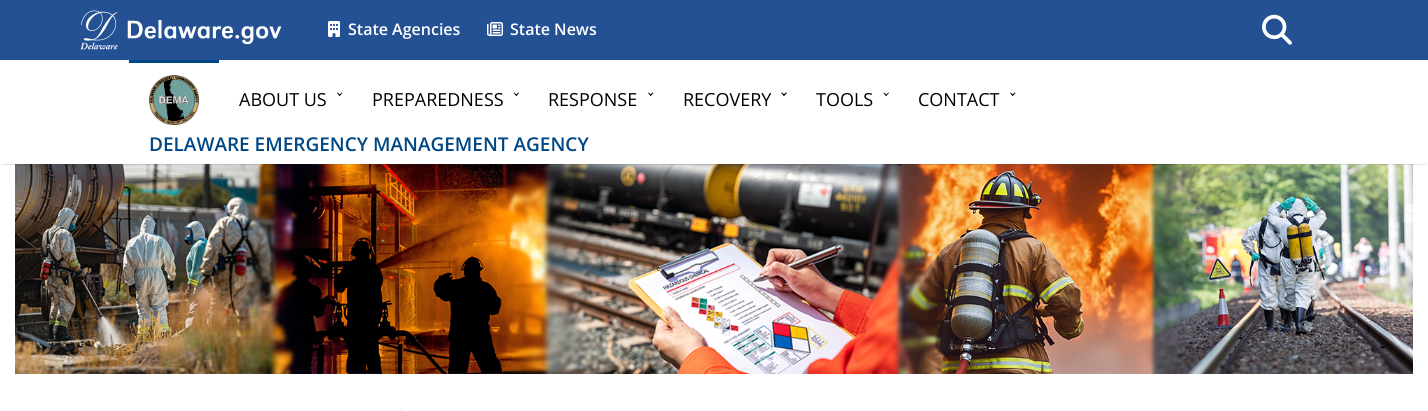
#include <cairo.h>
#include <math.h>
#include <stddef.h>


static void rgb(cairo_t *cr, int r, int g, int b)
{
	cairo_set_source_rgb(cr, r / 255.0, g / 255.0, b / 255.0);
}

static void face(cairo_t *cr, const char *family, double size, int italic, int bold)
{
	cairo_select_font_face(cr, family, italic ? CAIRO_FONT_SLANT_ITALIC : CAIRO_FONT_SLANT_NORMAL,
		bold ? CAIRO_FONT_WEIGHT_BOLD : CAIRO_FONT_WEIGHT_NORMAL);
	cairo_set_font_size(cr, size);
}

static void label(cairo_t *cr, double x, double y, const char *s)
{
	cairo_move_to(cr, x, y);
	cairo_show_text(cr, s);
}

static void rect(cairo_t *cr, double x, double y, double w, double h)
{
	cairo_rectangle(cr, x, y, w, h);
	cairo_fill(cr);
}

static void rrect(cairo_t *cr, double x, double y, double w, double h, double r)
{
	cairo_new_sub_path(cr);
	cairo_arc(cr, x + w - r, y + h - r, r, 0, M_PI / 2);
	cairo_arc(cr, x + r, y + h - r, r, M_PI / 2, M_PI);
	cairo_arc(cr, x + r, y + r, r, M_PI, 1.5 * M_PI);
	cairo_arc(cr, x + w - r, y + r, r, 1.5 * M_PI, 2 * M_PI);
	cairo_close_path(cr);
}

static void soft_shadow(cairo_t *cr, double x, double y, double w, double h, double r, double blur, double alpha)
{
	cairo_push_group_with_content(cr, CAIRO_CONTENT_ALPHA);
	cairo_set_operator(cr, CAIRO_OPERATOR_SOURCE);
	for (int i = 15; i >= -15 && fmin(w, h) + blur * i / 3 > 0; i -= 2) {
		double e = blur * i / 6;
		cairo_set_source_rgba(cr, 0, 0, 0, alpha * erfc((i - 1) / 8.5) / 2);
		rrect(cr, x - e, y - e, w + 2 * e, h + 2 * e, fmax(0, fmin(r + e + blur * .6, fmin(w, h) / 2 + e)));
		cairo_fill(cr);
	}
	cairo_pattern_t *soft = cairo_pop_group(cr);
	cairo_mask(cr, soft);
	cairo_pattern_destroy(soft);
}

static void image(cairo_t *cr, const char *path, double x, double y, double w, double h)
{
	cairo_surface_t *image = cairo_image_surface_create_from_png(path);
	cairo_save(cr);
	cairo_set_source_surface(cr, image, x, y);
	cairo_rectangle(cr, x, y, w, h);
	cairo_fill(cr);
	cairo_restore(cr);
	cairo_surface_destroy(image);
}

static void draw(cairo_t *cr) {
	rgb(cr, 255, 255, 255);
	cairo_paint(cr);
	rgb(cr, 36, 81, 148);
	rect(cr, 0, 0, 1428, 60);
	image(cr, "image0.png", 80, 10, 38, 40);
	image(cr, "image1.png", 127, 20, 155, 25);
	image(cr, "image2.png", 328, 21, 12, 16);
	face(cr, "Open Sans SemiBold", 16, 0, 0);
	rgb(cr, 255, 255, 255);
	label(cr, 348, 35, "State Agencies");
	image(cr, "image3.png", 487, 22, 16, 14);
	label(cr, 510, 35, "State News");
	image(cr, "image4.png", 1262, 14, 30, 31);
	image(cr, "image6.png", 15, 164, 1398, 210);
	cairo_save(cr);
	cairo_rectangle(cr, 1, 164, 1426, 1);
	cairo_clip(cr);
	rgb(cr, 0, 0, 0);
	soft_shadow(cr, 2, 64, 1424, 100, 0, 1, 0.3);
	cairo_restore(cr);
	rgb(cr, 0, 71, 133);
	rect(cr, 129, 60, 90, 3);
	image(cr, "image5.png", 149, 75, 50, 50);
	face(cr, "Open Sans", 18, 0, 0);
	rgb(cr, 0, 0, 0);
	label(cr, 239, 106, "ABOUT US");
	cairo_new_path(cr);
	cairo_move_to(cr, 342, 92.5);
	cairo_line_to(cr, 342.5, 93);
	cairo_line_to(cr, 339.5, 96);
	cairo_line_to(cr, 339, 95);
	cairo_close_path(cr);
	cairo_fill(cr);
	cairo_new_path(cr);
	cairo_move_to(cr, 337.5, 92.5);
	cairo_line_to(cr, 340.5, 95);
	cairo_line_to(cr, 339.5, 96);
	cairo_line_to(cr, 337, 93);
	cairo_close_path(cr);
	cairo_fill(cr);
	label(cr, 372, 106, "PREPAREDNESS");
	cairo_new_path(cr);
	cairo_move_to(cr, 518.5, 92.5);
	cairo_line_to(cr, 519, 93);
	cairo_line_to(cr, 516.5, 96);
	cairo_line_to(cr, 515.5, 95);
	cairo_close_path(cr);
	cairo_fill(cr);
	cairo_new_path(cr);
	cairo_move_to(cr, 514, 92.5);
	cairo_line_to(cr, 517, 95);
	cairo_line_to(cr, 516.5, 96);
	cairo_line_to(cr, 513.5, 93);
	cairo_close_path(cr);
	cairo_fill(cr);
	label(cr, 548, 106, "RESPONSE");
	cairo_new_path(cr);
	cairo_move_to(cr, 652.5, 92.5);
	cairo_line_to(cr, 653.5, 93);
	cairo_line_to(cr, 650.5, 96);
	cairo_line_to(cr, 650, 95);
	cairo_close_path(cr);
	cairo_fill(cr);
	cairo_new_path(cr);
	cairo_move_to(cr, 648.5, 92.5);
	cairo_line_to(cr, 651.5, 95);
	cairo_line_to(cr, 650.5, 96);
	cairo_line_to(cr, 648, 93);
	cairo_close_path(cr);
	cairo_fill(cr);
	label(cr, 683, 106, "RECOVERY");
	cairo_new_path(cr);
	cairo_move_to(cr, 786, 92.5);
	cairo_line_to(cr, 787, 93);
	cairo_line_to(cr, 784, 96);
	cairo_line_to(cr, 783, 95);
	cairo_close_path(cr);
	cairo_fill(cr);
	cairo_new_path(cr);
	cairo_move_to(cr, 782, 92.5);
	cairo_line_to(cr, 784.5, 95);
	cairo_line_to(cr, 784, 96);
	cairo_line_to(cr, 781, 93);
	cairo_close_path(cr);
	cairo_fill(cr);
	label(cr, 816, 106, "TOOLS");
	cairo_new_path(cr);
	cairo_move_to(cr, 888.5, 92.5);
	cairo_line_to(cr, 889, 93);
	cairo_line_to(cr, 886, 96);
	cairo_line_to(cr, 885.5, 95);
	cairo_close_path(cr);
	cairo_fill(cr);
	cairo_new_path(cr);
	cairo_move_to(cr, 884, 92.5);
	cairo_line_to(cr, 887, 95);
	cairo_line_to(cr, 886, 96);
	cairo_line_to(cr, 883.5, 93);
	cairo_close_path(cr);
	cairo_fill(cr);
	label(cr, 918, 106, "CONTACT");
	cairo_new_path(cr);
	cairo_move_to(cr, 1014.5, 92.5);
	cairo_line_to(cr, 1015.5, 93);
	cairo_line_to(cr, 1012.5, 96);
	cairo_line_to(cr, 1012, 95);
	cairo_close_path(cr);
	cairo_fill(cr);
	cairo_new_path(cr);
	cairo_move_to(cr, 1010.5, 92.5);
	cairo_line_to(cr, 1013.5, 95);
	cairo_line_to(cr, 1012.5, 96);
	cairo_line_to(cr, 1010, 93);
	cairo_close_path(cr);
	cairo_fill(cr);
	face(cr, "Open Sans SemiBold", 19, 0, 0);
	rgb(cr, 0, 71, 133);
	label(cr, 149, 151, "DELAWARE EMERGENCY MANAGEMENT AGENCY");
	rgb(cr, 231, 231, 231);
	rect(cr, 401, 408, 1, 3);
}

int main(void) {
	cairo_surface_t *surface = cairo_image_surface_create(CAIRO_FORMAT_RGB24, 1428, 411);
	cairo_t *cr = cairo_create(surface);
	cairo_font_options_t *options = cairo_font_options_create();
	cairo_font_options_set_hint_metrics(options, CAIRO_HINT_METRICS_OFF);
	cairo_font_options_set_hint_style(options, CAIRO_HINT_STYLE_NONE);
	cairo_set_font_options(cr, options);
	cairo_set_miter_limit(cr, 4);
	draw(cr);
	cairo_surface_write_to_png(surface, "render.png");
	cairo_font_options_destroy(options);
	cairo_destroy(cr);
	cairo_surface_destroy(surface);
	return 0;
}
